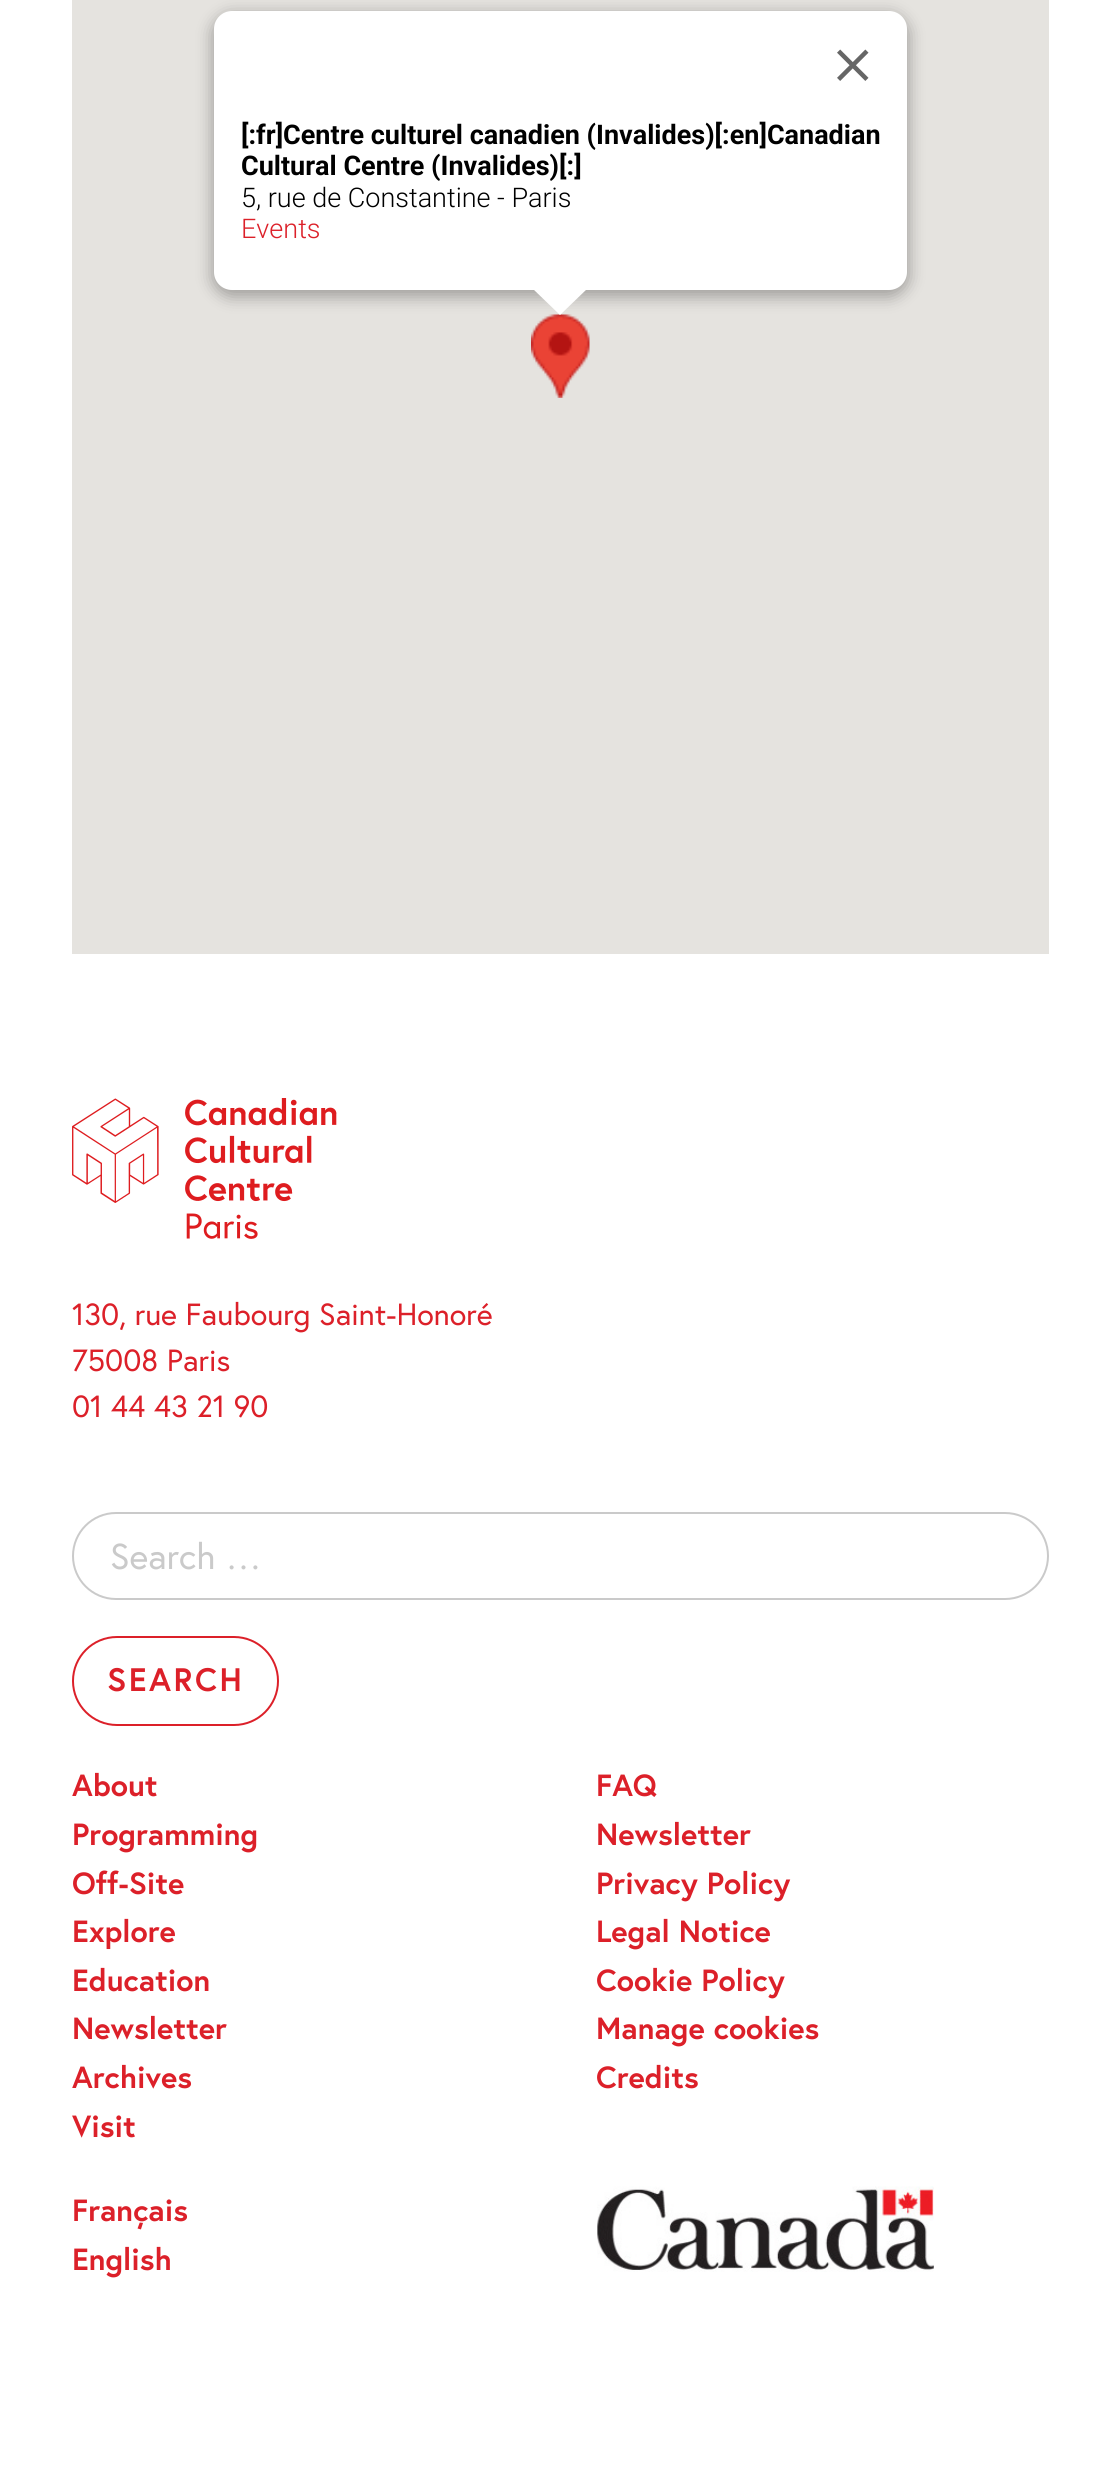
#include <cairo.h>
#include <math.h>
#include <stddef.h>


static void rgb(cairo_t *cr, int r, int g, int b)
{
	cairo_set_source_rgb(cr, r / 255.0, g / 255.0, b / 255.0);
}

static void face(cairo_t *cr, const char *family, double size, int italic, int bold)
{
	cairo_select_font_face(cr, family, italic ? CAIRO_FONT_SLANT_ITALIC : CAIRO_FONT_SLANT_NORMAL,
		bold ? CAIRO_FONT_WEIGHT_BOLD : CAIRO_FONT_WEIGHT_NORMAL);
	cairo_set_font_size(cr, size);
}

static void label(cairo_t *cr, double x, double y, const char *s)
{
	cairo_move_to(cr, x, y);
	cairo_show_text(cr, s);
}

static void tracked(cairo_t *cr, double x, double y, const char *s, double letter, double word)
{
	cairo_move_to(cr, x, y);
	while (*s) {
		char ch[5] = {0};
		int n = 0;
		do ch[n++] = *s++; while ((*s & 0xC0) == 0x80);
		cairo_show_text(cr, ch);
		cairo_rel_move_to(cr, letter + word * (*ch == ' '), 0);
	}
}

static void rect(cairo_t *cr, double x, double y, double w, double h)
{
	cairo_rectangle(cr, x, y, w, h);
	cairo_fill(cr);
}

static void rrect(cairo_t *cr, double x, double y, double w, double h, double r)
{
	cairo_new_sub_path(cr);
	cairo_arc(cr, x + w - r, y + h - r, r, 0, M_PI / 2);
	cairo_arc(cr, x + r, y + h - r, r, M_PI / 2, M_PI);
	cairo_arc(cr, x + r, y + r, r, M_PI, 1.5 * M_PI);
	cairo_arc(cr, x + w - r, y + r, r, 1.5 * M_PI, 2 * M_PI);
	cairo_close_path(cr);
}

static void soft_shadow(cairo_t *cr, double x, double y, double w, double h, double r, double blur, double alpha)
{
	cairo_push_group_with_content(cr, CAIRO_CONTENT_ALPHA);
	cairo_set_operator(cr, CAIRO_OPERATOR_SOURCE);
	for (int i = 15; i >= -15 && fmin(w, h) + blur * i / 3 > 0; i -= 2) {
		double e = blur * i / 6;
		cairo_set_source_rgba(cr, 0, 0, 0, alpha * erfc((i - 1) / 8.5) / 2);
		rrect(cr, x - e, y - e, w + 2 * e, h + 2 * e, fmax(0, fmin(r + e + blur * .6, fmin(w, h) / 2 + e)));
		cairo_fill(cr);
	}
	cairo_pattern_t *soft = cairo_pop_group(cr);
	cairo_mask(cr, soft);
	cairo_pattern_destroy(soft);
}

static void image(cairo_t *cr, const char *path, double x, double y, double w, double h)
{
	cairo_surface_t *image = cairo_image_surface_create_from_png(path);
	cairo_save(cr);
	cairo_set_source_surface(cr, image, x, y);
	cairo_rectangle(cr, x, y, w, h);
	cairo_fill(cr);
	cairo_restore(cr);
	cairo_surface_destroy(image);
}

static void draw(cairo_t *cr) {
	rgb(cr, 255, 255, 255);
	cairo_paint(cr);
	rgb(cr, 229, 227, 223);
	rect(cr, 72, 0, 977, 954);
	image(cr, "image1.png", 531, 314, 59, 84);
	rgb(cr, 0, 0, 0);
	soft_shadow(cr, 212, 14, 697, 283, 20, 8, 0.3);
	rgb(cr, 255, 255, 255);
	rrect(cr, 214, 11, 693, 279, 18);
	cairo_fill(cr);
	image(cr, "image0.png", 837, 49, 32, 32);
	face(cr, "Roboto", 27, 0, 1);
	rgb(cr, 0, 0, 0);
	label(cr, 241, 144, "[:fr]Centre culturel canadien (Invalides)[:en]Canadian");
	label(cr, 241, 175, "Cultural Centre (Invalides)[:]");
	face(cr, "Roboto Light", 27, 0, 0);
	label(cr, 241, 207, "5, rue de Constantine - Paris");
	rgb(cr, 220, 32, 41);
	label(cr, 241, 238, "Events");
	rgb(cr, 255, 255, 255);
	cairo_new_path(cr);
	cairo_move_to(cr, 533, 288);
	cairo_line_to(cr, 533, 289);
	cairo_line_to(cr, 560, 315);
	cairo_line_to(cr, 588, 288);
	cairo_close_path(cr);
	cairo_fill(cr);
	image(cr, "image2.png", 72, 1098, 265, 141);
	face(cr, "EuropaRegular", 30.6, 0, 0);
	rgb(cr, 220, 32, 41);
	label(cr, 72, 1325, "130, rue Faubourg Saint-Honoré");
	label(cr, 72, 1371, "75008 Paris");
	label(cr, 72, 1417, "01 44 43 21 90");
	rrect(cr, 73, 1513, 975, 86, 43);
	rgb(cr, 202, 202, 202);
	cairo_stroke(cr);
	face(cr, "EuropaRegular", 36, 0, 0);
	label(cr, 110, 1569, "Search …");
	rrect(cr, 73, 1637, 205, 88, 44);
	rgb(cr, 220, 32, 41);
	cairo_stroke(cr);
	face(cr, "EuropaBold", 32.5, 0, 1);
	tracked(cr, 107, 1691, "SEARCH", 2.5, 0);
	face(cr, "EuropaBold", 30.6, 0, 1);
	label(cr, 72, 1796, "About");
	label(cr, 72, 1845, "Programming");
	label(cr, 72, 1894, "Off-Site");
	label(cr, 72, 1942, "Explore");
	label(cr, 72, 1991, "Education");
	label(cr, 72, 2039, "Newsletter");
	label(cr, 72, 2088, "Archives");
	label(cr, 72, 2137, "Visit");
	label(cr, 596, 1796, "FAQ");
	label(cr, 596, 1845, "Newsletter");
	label(cr, 596, 1894, "Privacy Policy");
	label(cr, 596, 1942, "Legal Notice");
	label(cr, 596, 1991, "Cookie Policy");
	label(cr, 596, 2039, "Manage cookies");
	label(cr, 596, 2088, "Credits");
	label(cr, 72, 2221, "Français");
	label(cr, 72, 2270, "English");
	image(cr, "image3.png", 597, 2186, 337, 86);
}

int main(void) {
	cairo_surface_t *surface = cairo_image_surface_create(CAIRO_FORMAT_RGB24, 1120, 2469);
	cairo_t *cr = cairo_create(surface);
	cairo_font_options_t *options = cairo_font_options_create();
	cairo_font_options_set_hint_metrics(options, CAIRO_HINT_METRICS_OFF);
	cairo_font_options_set_hint_style(options, CAIRO_HINT_STYLE_NONE);
	cairo_set_font_options(cr, options);
	cairo_set_miter_limit(cr, 4);
	draw(cr);
	cairo_surface_write_to_png(surface, "render.png");
	cairo_font_options_destroy(options);
	cairo_destroy(cr);
	cairo_surface_destroy(surface);
	return 0;
}
